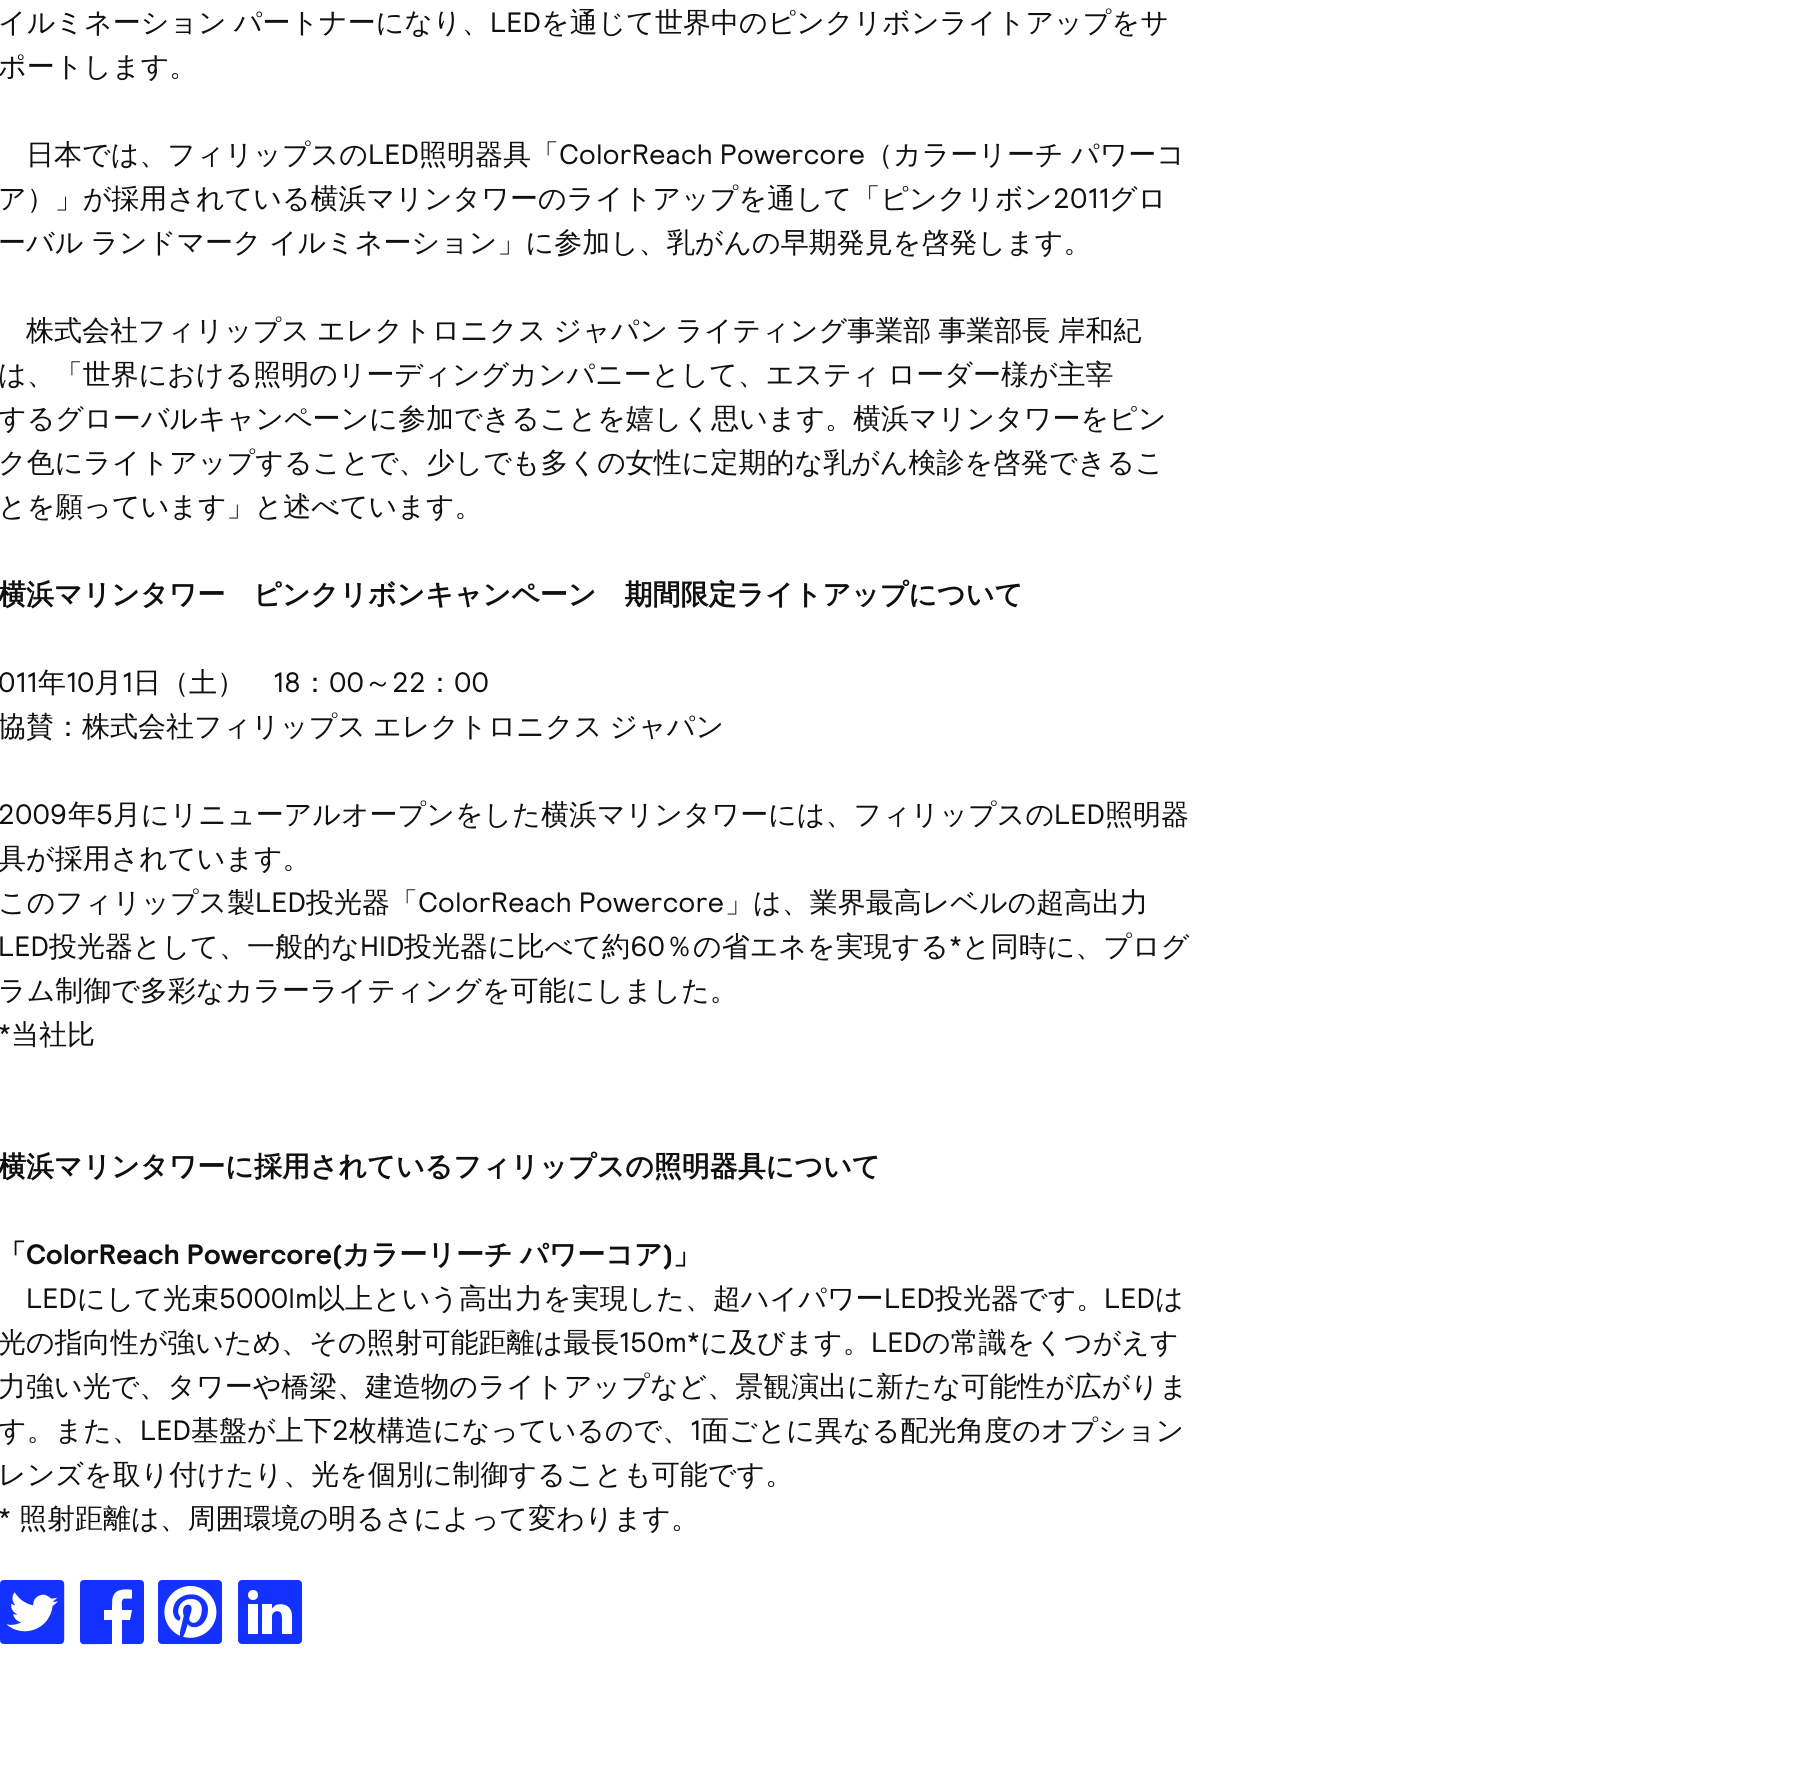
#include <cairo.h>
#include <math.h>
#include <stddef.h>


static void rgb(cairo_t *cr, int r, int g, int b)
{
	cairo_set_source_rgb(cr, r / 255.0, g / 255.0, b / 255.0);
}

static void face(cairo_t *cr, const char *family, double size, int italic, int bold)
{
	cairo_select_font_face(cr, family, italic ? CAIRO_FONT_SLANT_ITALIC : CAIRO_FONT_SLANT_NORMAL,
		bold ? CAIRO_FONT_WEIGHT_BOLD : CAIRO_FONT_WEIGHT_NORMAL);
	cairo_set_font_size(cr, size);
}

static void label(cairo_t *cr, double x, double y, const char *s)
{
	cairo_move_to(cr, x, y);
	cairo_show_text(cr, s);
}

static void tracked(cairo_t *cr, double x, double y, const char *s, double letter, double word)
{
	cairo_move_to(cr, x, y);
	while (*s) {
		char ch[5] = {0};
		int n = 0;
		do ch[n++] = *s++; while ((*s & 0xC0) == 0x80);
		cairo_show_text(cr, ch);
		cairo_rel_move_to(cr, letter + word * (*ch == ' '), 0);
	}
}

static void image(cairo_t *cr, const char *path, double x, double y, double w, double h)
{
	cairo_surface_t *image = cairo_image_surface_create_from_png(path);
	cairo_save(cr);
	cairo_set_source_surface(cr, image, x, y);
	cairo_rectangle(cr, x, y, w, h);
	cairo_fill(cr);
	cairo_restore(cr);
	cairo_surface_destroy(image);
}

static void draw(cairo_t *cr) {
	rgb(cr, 255, 255, 255);
	cairo_paint(cr);
	face(cr, "WenQuanYi Zen Hei Medium", 28, 0, 0);
	rgb(cr, 16, 16, 16);
	tracked(cr, -2, 32, "イルミネーション パートナーになり、", 0, -1.25);
	face(cr, "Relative", 28, 0, 0);
	label(cr, 490, 32, "LED");
	face(cr, "WenQuanYi Zen Hei Medium", 28, 0, 0);
	label(cr, 541, 32, "を通じて世界中のピンクリボンライトアップをサ");
	label(cr, -2, 76, "ポートします。");
	label(cr, 26, 164, "日本では、フィリップスの");
	face(cr, "Relative", 28, 0, 0);
	label(cr, 368, 164, "LED");
	face(cr, "WenQuanYi Zen Hei Medium", 28, 0, 0);
	label(cr, 419, 164, "照明器具「");
	face(cr, "Relative", 28, 0, 0);
	label(cr, 559, 164, "ColorReach Powercore");
	face(cr, "WenQuanYi Zen Hei Medium", 28, 0, 0);
	label(cr, 865, 164, "（カラーリーチ");
	label(cr, 1071, 164, "パワーコ");
	label(cr, -2, 208, "ア）」が採用されている横浜マリンタワーのライトアップを通して「ピンクリボン");
	face(cr, "Relative", 28, 0, 0);
	label(cr, 1053, 208, "2011");
	face(cr, "WenQuanYi Zen Hei Medium", 28, 0, 0);
	label(cr, 1109, 208, "グロ");
	tracked(cr, -2, 252, "ーバル ランドマーク イルミネーション」に参加し、乳がんの早期発見を啓発します。", 0, -1.25);
	tracked(cr, 26, 340, "株式会社フィリップス エレクトロニクス ジャパン ライティング事業部 事業部長 岸和紀", 0, -1.25);
	tracked(cr, -2, 384, "は、「世界における照明のリーディングカンパニーとして、エスティ ローダー様が主宰", 0, -1.25);
	label(cr, -2, 428, "するグローバルキャンペーンに参加できることを嬉しく思います。横浜マリンタワーをピン");
	label(cr, -2, 472, "ク色にライトアップすることで、少しでも多くの女性に定期的な乳がん検診を啓発できるこ");
	label(cr, -2, 516, "とを願っています」と述べています。");
	face(cr, "WenQuanYi Zen Hei", 28, 0, 1);
	label(cr, -2, 604, "横浜マリンタワー　ピンクリボンキャンペーン　期間限定ライトアップについて");
	face(cr, "Relative", 28, 0, 0);
	label(cr, -2, 692, "011");
	face(cr, "WenQuanYi Zen Hei Medium", 28, 0, 0);
	label(cr, 38, 692, "年");
	face(cr, "Relative", 28, 0, 0);
	label(cr, 66, 692, "10");
	face(cr, "WenQuanYi Zen Hei Medium", 28, 0, 0);
	label(cr, 94, 692, "月");
	face(cr, "Relative", 28, 0, 0);
	label(cr, 122, 692, "1");
	face(cr, "WenQuanYi Zen Hei Medium", 28, 0, 0);
	label(cr, 133, 692, "日（土）");
	face(cr, "Relative", 28, 0, 0);
	label(cr, 273, 692, "18");
	face(cr, "WenQuanYi Zen Hei Medium", 28, 0, 0);
	label(cr, 301, 692, "：");
	face(cr, "Relative", 28, 0, 0);
	label(cr, 329, 692, "00");
	face(cr, "WenQuanYi Zen Hei Medium", 28, 0, 0);
	label(cr, 364, 692, "～");
	face(cr, "Relative", 28, 0, 0);
	label(cr, 392, 692, "22");
	face(cr, "WenQuanYi Zen Hei Medium", 28, 0, 0);
	label(cr, 426, 692, "：");
	face(cr, "Relative", 28, 0, 0);
	label(cr, 454, 692, "00");
	face(cr, "WenQuanYi Zen Hei Medium", 28, 0, 0);
	tracked(cr, -2, 736, "協賛：株式会社フィリップス エレクトロニクス ジャパン", 0, -1.25);
	face(cr, "Relative", 28, 0, 0);
	label(cr, -2, 824, "2009");
	face(cr, "WenQuanYi Zen Hei Medium", 28, 0, 0);
	label(cr, 68, 824, "年");
	face(cr, "Relative", 28, 0, 0);
	label(cr, 96, 824, "5");
	face(cr, "WenQuanYi Zen Hei Medium", 28, 0, 0);
	label(cr, 113, 824, "月にリニューアルオープンをした横浜マリンタワーには、フィリップスの");
	face(cr, "Relative", 28, 0, 0);
	label(cr, 1054, 824, "LED");
	face(cr, "WenQuanYi Zen Hei Medium", 28, 0, 0);
	label(cr, 1105, 824, "照明器");
	label(cr, -2, 868, "具が採用されています。");
	label(cr, -2, 912, "このフィリップス製");
	face(cr, "Relative", 28, 0, 0);
	label(cr, 255, 912, "LED");
	face(cr, "WenQuanYi Zen Hei Medium", 28, 0, 0);
	label(cr, 306, 912, "投光器「");
	face(cr, "Relative", 28, 0, 0);
	label(cr, 418, 912, "ColorReach Powercore");
	face(cr, "WenQuanYi Zen Hei Medium", 28, 0, 0);
	label(cr, 725, 912, "」は、業界最高レベルの超高出力");
	face(cr, "Relative", 28, 0, 0);
	label(cr, -2, 956, "LED");
	face(cr, "WenQuanYi Zen Hei Medium", 28, 0, 0);
	label(cr, 49, 956, "投光器として、一般的な");
	face(cr, "Relative", 28, 0, 0);
	label(cr, 360, 956, "HID");
	face(cr, "WenQuanYi Zen Hei Medium", 28, 0, 0);
	label(cr, 404, 956, "投光器に比べて約");
	face(cr, "Relative", 28, 0, 0);
	label(cr, 630, 956, "60");
	face(cr, "WenQuanYi Zen Hei Medium", 28, 0, 0);
	label(cr, 665, 956, "％の省エネを実現する");
	face(cr, "Relative", 28, 0, 0);
	label(cr, 949, 956, "*");
	face(cr, "WenQuanYi Zen Hei Medium", 28, 0, 0);
	label(cr, 962, 956, "と同時に、プログ");
	label(cr, -2, 1000, "ラム制御で多彩なカラーライティングを可能にしました。");
	face(cr, "Relative", 28, 0, 0);
	label(cr, -2, 1044, "*");
	face(cr, "WenQuanYi Zen Hei Medium", 28, 0, 0);
	label(cr, 11, 1044, "当社比");
	face(cr, "WenQuanYi Zen Hei", 28, 0, 1);
	label(cr, -2, 1176, "横浜マリンタワーに採用されているフィリップスの照明器具について");
	label(cr, -2, 1264, "「");
	face(cr, "Relative", 28, 0, 1);
	label(cr, 26, 1264, "ColorReach Powercore(");
	face(cr, "WenQuanYi Zen Hei", 28, 0, 1);
	label(cr, 342, 1264, "カラーリーチ");
	label(cr, 520, 1264, "パワーコア");
	face(cr, "Relative", 28, 0, 1);
	label(cr, 663, 1264, ")");
	face(cr, "WenQuanYi Zen Hei", 28, 0, 1);
	label(cr, 673, 1264, "」");
	face(cr, "Relative", 28, 0, 0);
	label(cr, 26, 1308, "LED");
	face(cr, "WenQuanYi Zen Hei Medium", 28, 0, 0);
	label(cr, 77, 1308, "にして光束");
	face(cr, "Relative", 28, 0, 0);
	label(cr, 219, 1308, "5000lm");
	face(cr, "WenQuanYi Zen Hei Medium", 28, 0, 0);
	label(cr, 317, 1308, "以上という高出力を実現した、超ハイパワー");
	face(cr, "Relative", 28, 0, 0);
	label(cr, 884, 1308, "LED");
	face(cr, "WenQuanYi Zen Hei Medium", 28, 0, 0);
	label(cr, 935, 1308, "投光器です。");
	face(cr, "Relative", 28, 0, 0);
	label(cr, 1104, 1308, "LED");
	face(cr, "WenQuanYi Zen Hei Medium", 28, 0, 0);
	label(cr, 1155, 1308, "は");
	label(cr, -2, 1352, "光の指向性が強いため、その照射可能距離は最長");
	face(cr, "Relative", 28, 0, 0);
	label(cr, 619, 1352, "150m*");
	face(cr, "WenQuanYi Zen Hei Medium", 28, 0, 0);
	label(cr, 700, 1352, "に及びます。");
	face(cr, "Relative", 28, 0, 0);
	label(cr, 871, 1352, "LED");
	face(cr, "WenQuanYi Zen Hei Medium", 28, 0, 0);
	label(cr, 922, 1352, "の常識をくつがえす");
	label(cr, -2, 1396, "力強い光で、タワーや橋梁、建造物のライトアップなど、景観演出に新たな可能性が広がりま");
	label(cr, -2, 1440, "す。また、");
	face(cr, "Relative", 28, 0, 0);
	label(cr, 140, 1440, "LED");
	face(cr, "WenQuanYi Zen Hei Medium", 28, 0, 0);
	label(cr, 191, 1440, "基盤が上下");
	face(cr, "Relative", 28, 0, 0);
	label(cr, 332, 1440, "2");
	face(cr, "WenQuanYi Zen Hei Medium", 28, 0, 0);
	label(cr, 349, 1440, "枚構造になっているので、");
	face(cr, "Relative", 28, 0, 0);
	label(cr, 690, 1440, "1");
	face(cr, "WenQuanYi Zen Hei Medium", 28, 0, 0);
	label(cr, 701, 1440, "面ごとに異なる配光角度のオプション");
	label(cr, -2, 1484, "レンズを取り付けたり、光を個別に制御することも可能です。");
	face(cr, "Relative", 28, 0, 0);
	label(cr, -2, 1528, "*");
	face(cr, "WenQuanYi Zen Hei Medium", 28, 0, 0);
	label(cr, 19, 1528, "照射距離は、周囲環境の明るさによって変わります。");
	image(cr, "image0.png", 0, 1580, 65, 64);
	image(cr, "image1.png", 80, 1580, 64, 65);
	image(cr, "image2.png", 158, 1580, 64, 64);
	image(cr, "image3.png", 238, 1580, 64, 64);
}

int main(void) {
	cairo_surface_t *surface = cairo_image_surface_create(CAIRO_FORMAT_RGB24, 1803, 1770);
	cairo_t *cr = cairo_create(surface);
	cairo_font_options_t *options = cairo_font_options_create();
	cairo_font_options_set_hint_metrics(options, CAIRO_HINT_METRICS_OFF);
	cairo_font_options_set_hint_style(options, CAIRO_HINT_STYLE_NONE);
	cairo_set_font_options(cr, options);
	cairo_set_miter_limit(cr, 4);
	draw(cr);
	cairo_surface_write_to_png(surface, "render.png");
	cairo_font_options_destroy(options);
	cairo_destroy(cr);
	cairo_surface_destroy(surface);
	return 0;
}
